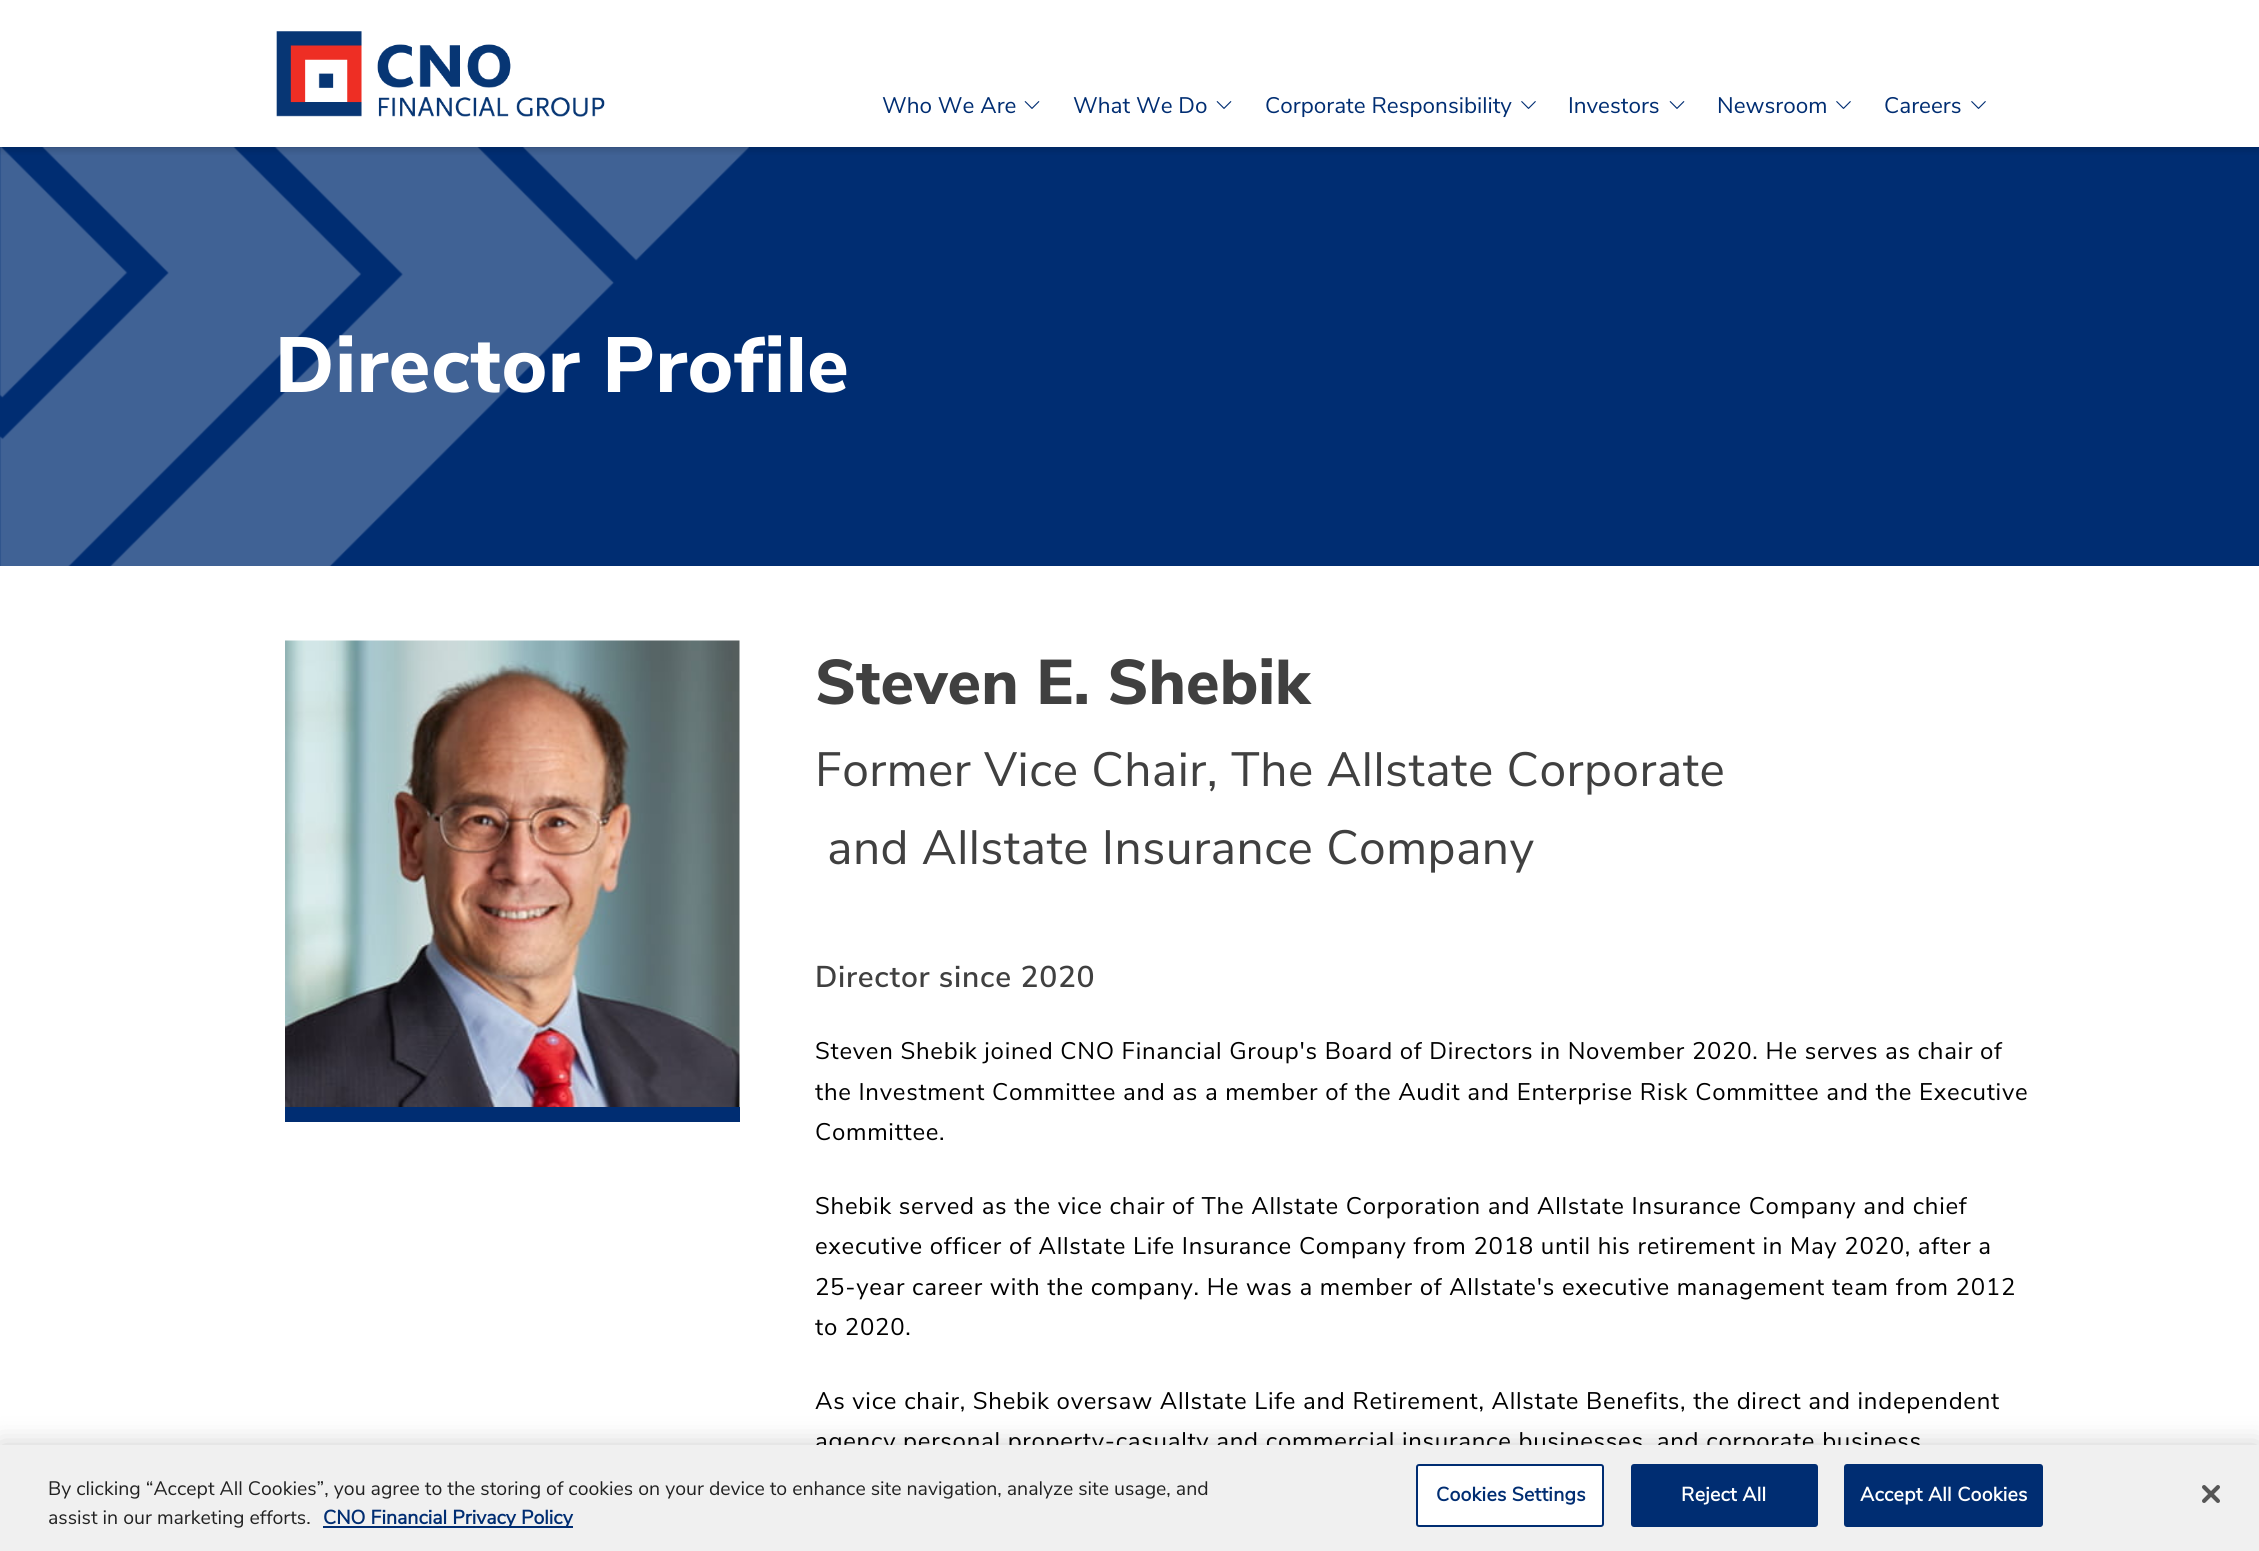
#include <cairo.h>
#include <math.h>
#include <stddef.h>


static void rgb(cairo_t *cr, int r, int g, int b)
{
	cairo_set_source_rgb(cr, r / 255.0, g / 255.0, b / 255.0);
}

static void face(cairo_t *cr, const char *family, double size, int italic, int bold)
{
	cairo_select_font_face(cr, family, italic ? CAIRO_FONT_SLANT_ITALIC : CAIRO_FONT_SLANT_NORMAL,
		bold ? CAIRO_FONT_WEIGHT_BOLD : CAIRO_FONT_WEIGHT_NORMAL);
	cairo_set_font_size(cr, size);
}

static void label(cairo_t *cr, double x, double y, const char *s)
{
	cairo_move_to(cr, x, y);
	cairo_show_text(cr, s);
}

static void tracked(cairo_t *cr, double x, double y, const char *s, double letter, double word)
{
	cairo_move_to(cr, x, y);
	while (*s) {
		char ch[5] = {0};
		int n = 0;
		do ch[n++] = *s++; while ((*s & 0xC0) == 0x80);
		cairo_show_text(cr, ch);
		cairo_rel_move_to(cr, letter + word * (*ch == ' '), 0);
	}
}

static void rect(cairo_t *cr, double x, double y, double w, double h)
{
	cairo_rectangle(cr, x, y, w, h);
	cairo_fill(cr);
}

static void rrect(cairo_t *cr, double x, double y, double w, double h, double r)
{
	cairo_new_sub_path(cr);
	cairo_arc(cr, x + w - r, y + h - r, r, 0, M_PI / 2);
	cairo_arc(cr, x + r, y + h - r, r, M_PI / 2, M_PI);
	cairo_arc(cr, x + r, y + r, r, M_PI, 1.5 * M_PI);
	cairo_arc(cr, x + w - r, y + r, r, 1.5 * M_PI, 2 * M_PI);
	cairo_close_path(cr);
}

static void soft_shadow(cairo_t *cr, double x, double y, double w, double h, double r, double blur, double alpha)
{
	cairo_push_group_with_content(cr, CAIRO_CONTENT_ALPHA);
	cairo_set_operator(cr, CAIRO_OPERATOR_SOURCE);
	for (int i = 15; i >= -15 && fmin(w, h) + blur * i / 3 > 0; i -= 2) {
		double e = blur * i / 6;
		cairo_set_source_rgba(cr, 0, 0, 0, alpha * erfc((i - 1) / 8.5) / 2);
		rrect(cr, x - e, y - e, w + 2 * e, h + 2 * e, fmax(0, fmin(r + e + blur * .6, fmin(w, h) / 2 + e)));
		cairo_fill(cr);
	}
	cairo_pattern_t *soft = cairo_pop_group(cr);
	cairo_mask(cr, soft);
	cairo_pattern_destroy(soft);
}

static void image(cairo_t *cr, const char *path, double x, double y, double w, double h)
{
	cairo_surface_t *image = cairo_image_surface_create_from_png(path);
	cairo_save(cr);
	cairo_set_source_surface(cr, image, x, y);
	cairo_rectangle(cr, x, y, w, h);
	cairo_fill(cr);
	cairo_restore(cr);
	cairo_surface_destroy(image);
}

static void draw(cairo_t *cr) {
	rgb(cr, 255, 255, 255);
	cairo_paint(cr);
	rgb(cr, 0, 45, 114);
	rect(cr, 0, 147, 2259, 419);
	image(cr, "image3.png", 0, 147, 749, 419);
	cairo_save(cr);
	cairo_rectangle(cr, 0, 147, 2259, 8);
	cairo_clip(cr);
	rgb(cr, 0, 0, 0);
	soft_shadow(cr, 0, 3, 2259, 147, 0, 4, 0.16);
	cairo_restore(cr);
	image(cr, "image0.png", 276, 31, 329, 86);
	face(cr, "Nunito Sans", 22.5, 0, 0);
	label(cr, 882, 113, "Who We Are");
	image(cr, "image1.png", 1024, 101, 16, 8);
	label(cr, 1073, 113, "What We Do");
	image(cr, "image1.png", 1216, 101, 16, 8);
	label(cr, 1265, 113, "Corporate Responsibility");
	image(cr, "image2.png", 1521, 101, 15, 8);
	label(cr, 1568, 113, "Investors");
	image(cr, "image1.png", 1669, 101, 16, 8);
	label(cr, 1717, 113, "Newsroom");
	image(cr, "image2.png", 1836, 101, 15, 8);
	label(cr, 1884, 113, "Careers");
	image(cr, "image2.png", 1971, 101, 15, 8);
	face(cr, "Nunito Sans ExtraBold", 78, 0, 0);
	rgb(cr, 255, 255, 255);
	tracked(cr, 275, 392, "Director Profile", 0.75, 0);
	image(cr, "image4.png", 285, 640, 455, 467);
	rgb(cr, 0, 45, 114);
	rect(cr, 285, 1107, 455, 15);
	face(cr, "Nunito Sans ExtraBold", 63, 0, 0);
	rgb(cr, 64, 64, 64);
	label(cr, 815, 704, "Steven E. Shebik");
	face(cr, "Nunito Sans", 48, 0, 0);
	tracked(cr, 815, 786, "Former Vice Chair, The Allstate Corporate", 0.45, 0);
	tracked(cr, 827, 864, "and Allstate Insurance Company", 0.45, 0);
	face(cr, "Nunito Sans SemiBold", 30, 0, 0);
	tracked(cr, 815, 987, "Director since 2020", 0.72, 0);
	face(cr, "Nunito Sans", 24, 0, 0);
	rgb(cr, 0, 0, 0);
	tracked(cr, 815, 1059, "Steven Shebik joined CNO Financial Group's Board of Directors in November 2020. He serves as chair of", 0.72, 0);
	tracked(cr, 815, 1100, "the Investment Committee and as a member of the Audit and Enterprise Risk Committee and the Executive", 0.72, 0);
	tracked(cr, 815, 1140, "Committee.", 0.72, 0);
	tracked(cr, 815, 1214, "Shebik served as the vice chair of The Allstate Corporation and Allstate Insurance Company and chief", 0.72, 0);
	tracked(cr, 815, 1254, "executive officer of Allstate Life Insurance Company from 2018 until his retirement in May 2020, after a", 0.72, 0);
	tracked(cr, 815, 1295, "25-year career with the company. He was a member of Allstate's executive management team from 2012", 0.72, 0);
	tracked(cr, 815, 1335, "to 2020.", 0.72, 0);
	tracked(cr, 815, 1409, "As vice chair, Shebik oversaw Allstate Life and Retirement, Allstate Benefits, the direct and independent", 0.72, 0);
	tracked(cr, 815, 1449, "agency personal property-casualty and commercial insurance businesses, and corporate business", 0.72, 0);
	rgb(cr, 0, 0, 0);
	soft_shadow(cr, 0, 1445, 2259, 106, 0, 13.5, 0.2);
	rgb(cr, 240, 240, 240);
	rect(cr, 0, 1445, 2259, 106);
	face(cr, "Nunito Sans", 19.5, 0, 0);
	rgb(cr, 34, 34, 34);
	label(cr, 48, 1495, "By clicking “Accept All Cookies”, you agree to the storing of cookies on your device to enhance site navigation, analyze site usage, and");
	label(cr, 48, 1524, "assist in our marketing efforts.");
	rgb(cr, 0, 45, 114);
	rect(cr, 323, 1526, 250, 2);
	face(cr, "Nunito Sans", 19.5, 0, 1);
	label(cr, 323, 1524, "CNO Financial Privacy Policy");
	rgb(cr, 255, 255, 255);
	rrect(cr, 1417, 1465, 186, 61, 2);
	cairo_fill_preserve(cr);
	rgb(cr, 0, 45, 114);
	cairo_stroke(cr);
	tracked(cr, 1436, 1501, "Cookies Settings", 0.25, 0);
	rrect(cr, 1632, 1465, 185, 61, 2);
	cairo_fill_preserve(cr);
	cairo_stroke(cr);
	rgb(cr, 255, 255, 255);
	tracked(cr, 1681, 1501, "Reject All", 0.25, 0);
	rgb(cr, 0, 45, 114);
	rrect(cr, 1845, 1465, 197, 61, 2);
	cairo_fill_preserve(cr);
	cairo_stroke(cr);
	rgb(cr, 255, 255, 255);
	tracked(cr, 1860, 1501, "Accept All Cookies", 0.25, 0);
	image(cr, "image5.png", 2202, 1485, 18, 18);
}

int main(void) {
	cairo_surface_t *surface = cairo_image_surface_create(CAIRO_FORMAT_RGB24, 2259, 1551);
	cairo_t *cr = cairo_create(surface);
	cairo_font_options_t *options = cairo_font_options_create();
	cairo_font_options_set_hint_metrics(options, CAIRO_HINT_METRICS_OFF);
	cairo_font_options_set_hint_style(options, CAIRO_HINT_STYLE_NONE);
	cairo_set_font_options(cr, options);
	cairo_set_miter_limit(cr, 4);
	draw(cr);
	cairo_surface_write_to_png(surface, "render.png");
	cairo_font_options_destroy(options);
	cairo_destroy(cr);
	cairo_surface_destroy(surface);
	return 0;
}
